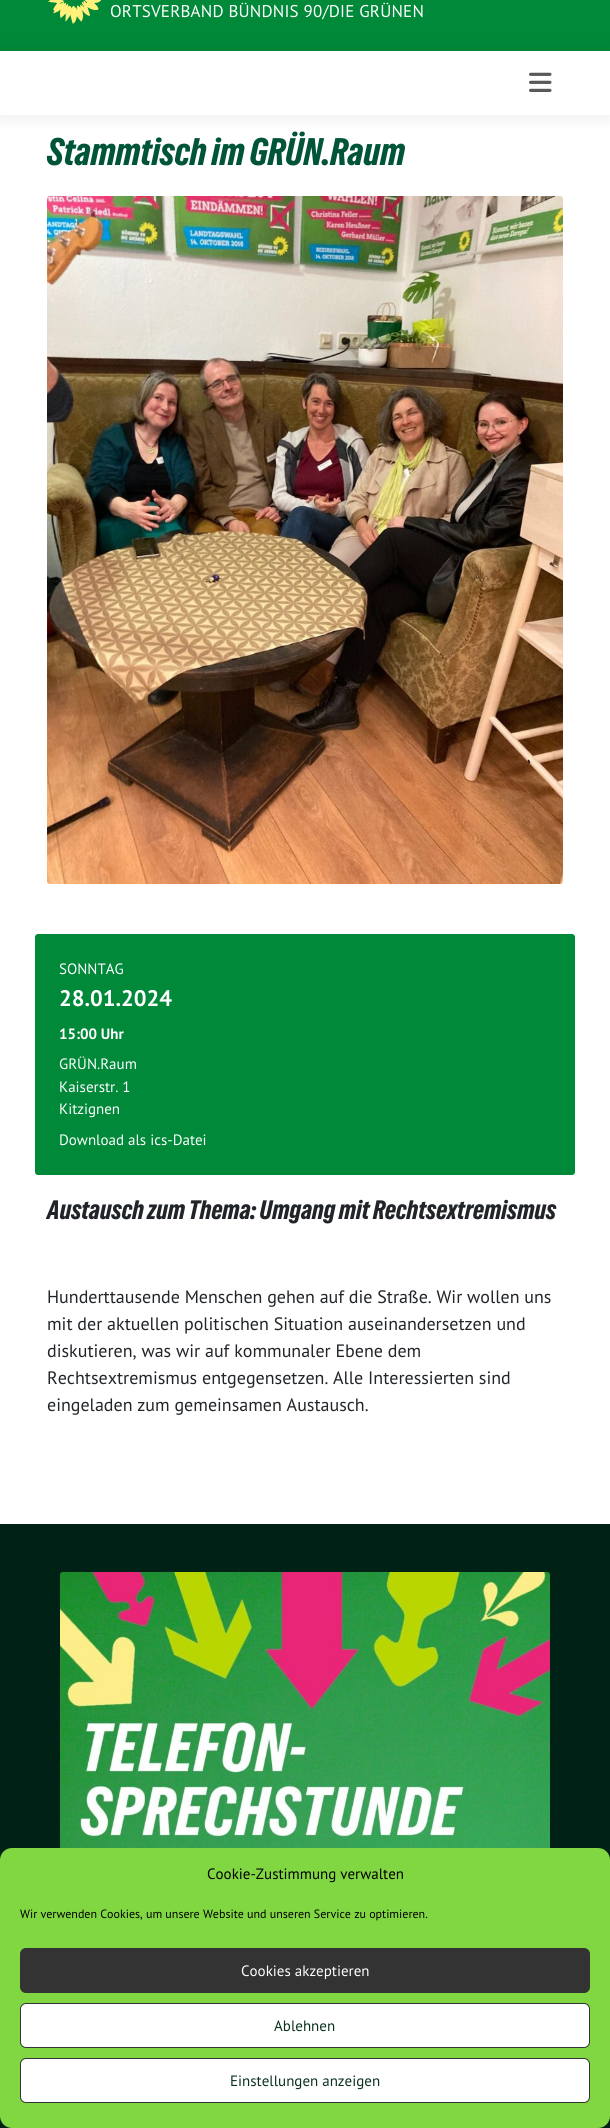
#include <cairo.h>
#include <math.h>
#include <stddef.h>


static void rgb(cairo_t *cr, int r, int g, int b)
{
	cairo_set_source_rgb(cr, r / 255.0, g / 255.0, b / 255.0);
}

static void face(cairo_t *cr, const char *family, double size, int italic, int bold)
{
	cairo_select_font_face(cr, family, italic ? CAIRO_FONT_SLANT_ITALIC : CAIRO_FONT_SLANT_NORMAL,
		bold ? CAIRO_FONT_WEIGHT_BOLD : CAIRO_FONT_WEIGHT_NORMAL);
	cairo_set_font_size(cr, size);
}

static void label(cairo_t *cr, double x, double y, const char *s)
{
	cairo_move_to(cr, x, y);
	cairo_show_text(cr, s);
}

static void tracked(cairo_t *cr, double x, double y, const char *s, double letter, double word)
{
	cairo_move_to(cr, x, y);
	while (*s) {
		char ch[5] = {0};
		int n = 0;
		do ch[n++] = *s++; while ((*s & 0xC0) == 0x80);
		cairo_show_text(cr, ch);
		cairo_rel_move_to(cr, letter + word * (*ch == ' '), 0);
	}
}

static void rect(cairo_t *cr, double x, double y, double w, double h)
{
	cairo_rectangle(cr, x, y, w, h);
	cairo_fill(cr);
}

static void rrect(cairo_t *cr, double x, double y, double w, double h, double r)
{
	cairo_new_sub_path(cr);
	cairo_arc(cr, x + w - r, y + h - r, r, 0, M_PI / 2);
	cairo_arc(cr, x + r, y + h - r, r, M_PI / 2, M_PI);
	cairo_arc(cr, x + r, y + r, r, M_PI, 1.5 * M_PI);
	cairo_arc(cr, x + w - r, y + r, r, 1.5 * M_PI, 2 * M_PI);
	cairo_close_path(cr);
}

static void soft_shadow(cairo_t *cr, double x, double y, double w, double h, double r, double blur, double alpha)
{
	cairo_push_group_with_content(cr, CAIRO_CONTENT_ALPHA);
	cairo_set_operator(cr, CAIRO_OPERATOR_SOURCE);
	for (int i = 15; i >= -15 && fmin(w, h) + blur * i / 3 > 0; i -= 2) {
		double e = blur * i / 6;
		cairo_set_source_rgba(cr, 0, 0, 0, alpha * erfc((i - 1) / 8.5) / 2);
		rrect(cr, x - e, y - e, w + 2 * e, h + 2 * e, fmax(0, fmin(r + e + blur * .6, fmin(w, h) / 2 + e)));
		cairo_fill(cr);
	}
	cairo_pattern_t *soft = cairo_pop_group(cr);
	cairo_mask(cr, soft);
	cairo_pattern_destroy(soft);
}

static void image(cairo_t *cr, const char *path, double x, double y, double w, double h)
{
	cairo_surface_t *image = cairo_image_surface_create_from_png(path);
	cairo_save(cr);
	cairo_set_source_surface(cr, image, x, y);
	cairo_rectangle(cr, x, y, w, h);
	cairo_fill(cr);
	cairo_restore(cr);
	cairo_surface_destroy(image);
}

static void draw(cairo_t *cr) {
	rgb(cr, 255, 255, 255);
	cairo_paint(cr);
	rgb(cr, 0, 137, 57);
	rect(cr, 0, 0, 610, 51);
	image(cr, "image0.png", 48, 0, 53, 24);
	face(cr, "PT Sans", 17, 0, 0);
	rgb(cr, 255, 255, 255);
	tracked(cr, 110, 17, "ORTSVERBAND BÜNDNIS 90/DIE GRÜNEN", 0.2, 0);
	cairo_save(cr);
	cairo_set_fill_rule(cr, CAIRO_FILL_RULE_EVEN_ODD);
	cairo_new_path(cr);
	cairo_move_to(cr, 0, 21);
	cairo_line_to(cr, 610, 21);
	cairo_line_to(cr, 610, 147);
	cairo_line_to(cr, 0, 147);
	cairo_close_path(cr);
	cairo_move_to(cr, 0, 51);
	cairo_line_to(cr, 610, 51);
	cairo_line_to(cr, 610, 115);
	cairo_line_to(cr, 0, 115);
	cairo_close_path(cr);
	cairo_clip(cr);
	rgb(cr, 0, 0, 0);
	soft_shadow(cr, 0, 52, 610, 64, 0, 10, 0.08);
	cairo_restore(cr);
	image(cr, "image1.png", 529, 72, 23, 20);
	face(cr, "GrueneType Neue", 36, 0, 0);
	rgb(cr, 0, 84, 55);
	label(cr, 47, 165, "Stammtisch im GRÜN.Raum");
	image(cr, "image2.png", 47, 196, 516, 688);
	rgb(cr, 0, 137, 57);
	rrect(cr, 35, 934, 540, 241, 3);
	cairo_fill(cr);
	face(cr, "PT Sans", 15, 0, 0);
	rgb(cr, 255, 255, 255);
	label(cr, 59, 974, "SONNTAG");
	face(cr, "PT Sans", 22.5, 0, 1);
	label(cr, 59, 1006, "28.01.2024");
	face(cr, "PT Sans", 15, 0, 1);
	label(cr, 59, 1039, "15:00 Uhr");
	face(cr, "PT Sans", 15, 0, 0);
	label(cr, 59, 1069, "GRÜN.Raum");
	label(cr, 59, 1092, "Kaiserstr. 1");
	label(cr, 59, 1114, "Kitzignen");
	label(cr, 59, 1145, "Download als ics-Datei");
	face(cr, "GrueneType Neue", 25, 0, 0);
	rgb(cr, 33, 37, 41);
	label(cr, 47, 1219, "Austausch zum Thema: Umgang mit Rechtsextremismus");
	face(cr, "PT Sans", 18, 0, 0);
	label(cr, 47, 1303, "Hunderttausende Menschen gehen auf die Straße. Wir wollen uns");
	label(cr, 47, 1330, "mit der aktuellen politischen Situation auseinandersetzen und");
	label(cr, 47, 1357, "diskutieren, was wir auf kommunaler Ebene dem");
	label(cr, 47, 1384, "Rechtsextremismus entgegensetzen. Alle Interessierten sind");
	label(cr, 47, 1411, "eingeladen zum gemeinsamen Austausch.");
	rgb(cr, 0, 34, 22);
	rect(cr, 0, 1524, 610, 604);
	image(cr, "image3.png", 60, 1572, 490, 276);
	rgb(cr, 129, 215, 66);
	rrect(cr, 0, 1848, 610, 280, 12);
	cairo_fill(cr);
	face(cr, "PT Sans", 15, 0, 0);
	rgb(cr, 0, 0, 0);
	label(cr, 207, 1879, "Cookie-Zustimmung verwalten");
	face(cr, "PT Sans", 12, 0, 0);
	label(cr, 20, 1918, "Wir verwenden Cookies, um unsere Website und unseren Service zu optimieren.");
	rgb(cr, 51, 51, 51);
	rrect(cr, 20.5, 1948.5, 569, 44, 5.5);
	cairo_fill_preserve(cr);
	cairo_set_line_width(cr, 1);
	cairo_stroke(cr);
	face(cr, "PT Sans", 15, 0, 0);
	rgb(cr, 255, 255, 255);
	label(cr, 241, 1976, "Cookies akzeptieren");
	rrect(cr, 20.5, 2003.5, 569, 44, 5.5);
	cairo_fill_preserve(cr);
	rgb(cr, 51, 51, 51);
	cairo_stroke(cr);
	rgb(cr, 10, 50, 30);
	label(cr, 274, 2031, "Ablehnen");
	rgb(cr, 255, 255, 255);
	rrect(cr, 20.5, 2058.5, 569, 44, 5.5);
	cairo_fill_preserve(cr);
	rgb(cr, 51, 51, 51);
	cairo_stroke(cr);
	rgb(cr, 10, 50, 30);
	label(cr, 230, 2086, "Einstellungen anzeigen");
}

int main(void) {
	cairo_surface_t *surface = cairo_image_surface_create(CAIRO_FORMAT_RGB24, 610, 2128);
	cairo_t *cr = cairo_create(surface);
	cairo_font_options_t *options = cairo_font_options_create();
	cairo_font_options_set_hint_metrics(options, CAIRO_HINT_METRICS_OFF);
	cairo_font_options_set_hint_style(options, CAIRO_HINT_STYLE_NONE);
	cairo_set_font_options(cr, options);
	cairo_set_miter_limit(cr, 4);
	draw(cr);
	cairo_surface_write_to_png(surface, "render.png");
	cairo_font_options_destroy(options);
	cairo_destroy(cr);
	cairo_surface_destroy(surface);
	return 0;
}
